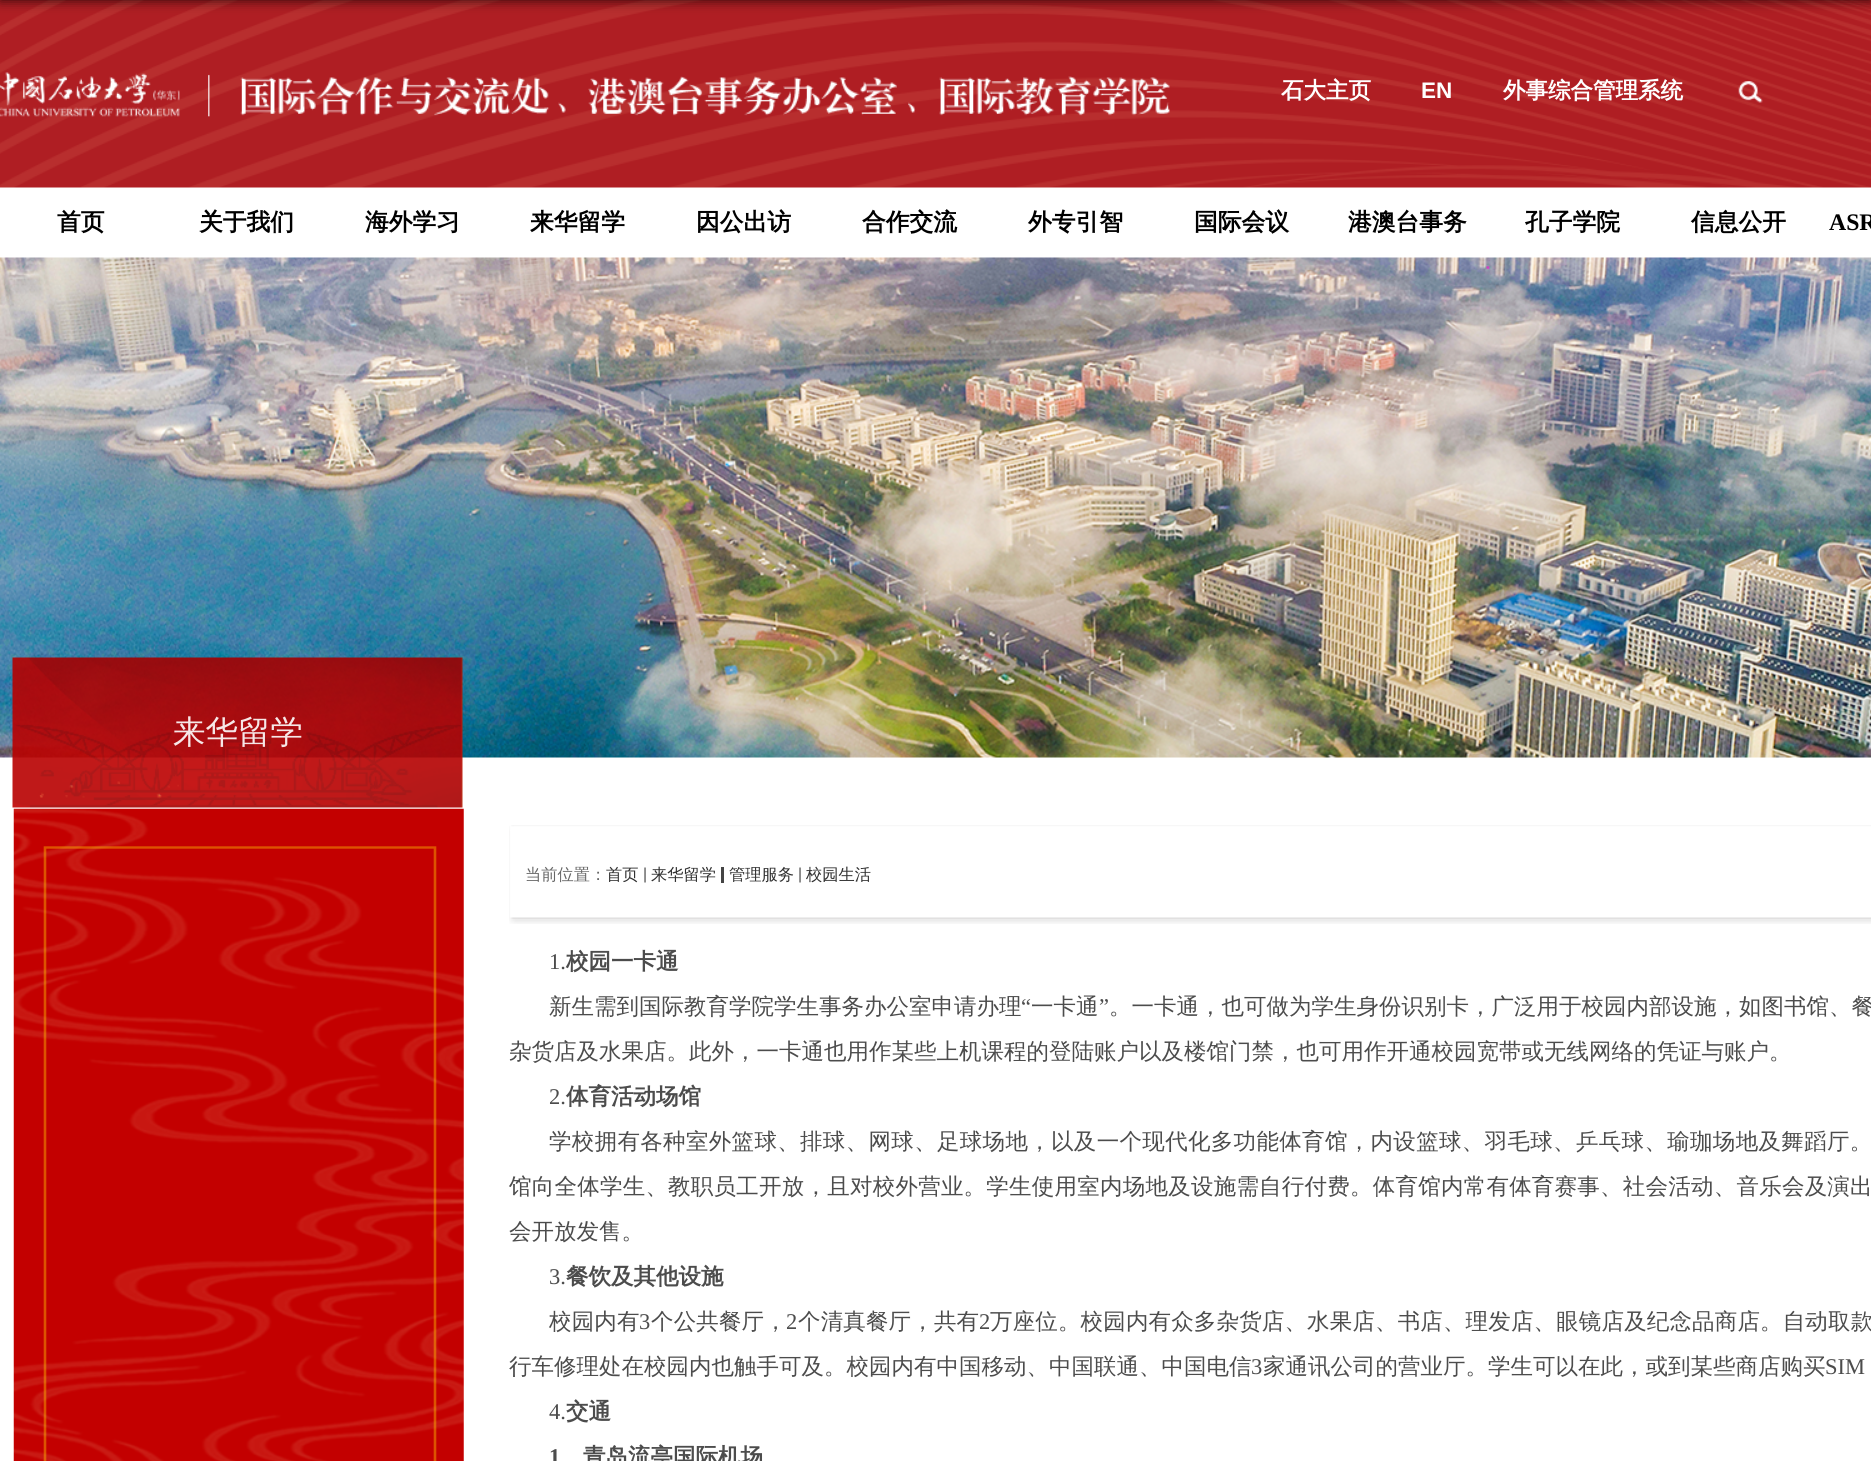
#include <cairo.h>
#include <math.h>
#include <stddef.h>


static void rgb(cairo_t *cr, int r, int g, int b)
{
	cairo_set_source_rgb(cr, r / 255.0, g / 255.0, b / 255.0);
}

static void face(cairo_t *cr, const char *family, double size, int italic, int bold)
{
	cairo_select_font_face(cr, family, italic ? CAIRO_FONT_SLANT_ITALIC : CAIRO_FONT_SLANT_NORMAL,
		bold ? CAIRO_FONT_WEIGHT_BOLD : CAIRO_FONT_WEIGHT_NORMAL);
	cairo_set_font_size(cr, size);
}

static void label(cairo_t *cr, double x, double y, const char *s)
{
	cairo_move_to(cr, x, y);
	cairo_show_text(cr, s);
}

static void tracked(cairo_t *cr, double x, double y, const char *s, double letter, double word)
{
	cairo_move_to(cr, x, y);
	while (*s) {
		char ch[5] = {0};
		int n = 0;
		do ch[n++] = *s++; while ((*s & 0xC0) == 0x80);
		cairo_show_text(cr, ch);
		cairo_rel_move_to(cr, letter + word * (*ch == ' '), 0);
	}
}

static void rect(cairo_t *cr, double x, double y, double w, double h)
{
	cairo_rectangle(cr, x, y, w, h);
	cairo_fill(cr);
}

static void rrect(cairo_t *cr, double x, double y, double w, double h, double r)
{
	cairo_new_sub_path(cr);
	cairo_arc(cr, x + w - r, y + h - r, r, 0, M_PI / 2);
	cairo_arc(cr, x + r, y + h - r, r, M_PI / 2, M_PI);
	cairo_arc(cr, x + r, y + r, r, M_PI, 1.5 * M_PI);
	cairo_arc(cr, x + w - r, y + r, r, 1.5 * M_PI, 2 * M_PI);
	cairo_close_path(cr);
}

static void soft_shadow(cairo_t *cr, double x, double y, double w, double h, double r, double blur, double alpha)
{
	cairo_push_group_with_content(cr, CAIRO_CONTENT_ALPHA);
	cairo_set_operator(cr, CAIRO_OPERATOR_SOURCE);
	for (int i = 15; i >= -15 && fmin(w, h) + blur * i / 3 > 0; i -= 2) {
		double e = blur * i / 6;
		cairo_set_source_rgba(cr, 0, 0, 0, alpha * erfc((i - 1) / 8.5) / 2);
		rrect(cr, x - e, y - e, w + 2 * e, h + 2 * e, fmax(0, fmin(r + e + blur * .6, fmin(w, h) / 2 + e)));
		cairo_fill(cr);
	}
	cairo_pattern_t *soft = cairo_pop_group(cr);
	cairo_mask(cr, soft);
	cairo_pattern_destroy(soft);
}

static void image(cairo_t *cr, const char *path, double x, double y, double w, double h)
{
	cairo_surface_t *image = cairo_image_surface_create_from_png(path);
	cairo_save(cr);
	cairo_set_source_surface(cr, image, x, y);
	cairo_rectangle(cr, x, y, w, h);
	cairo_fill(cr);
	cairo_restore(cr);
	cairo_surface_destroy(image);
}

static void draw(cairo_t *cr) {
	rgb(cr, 255, 255, 255);
	cairo_paint(cr);
	image(cr, "image0.png", 0, 0, 1871, 188);
	rgb(cr, 0, 0, 0);
	soft_shadow(cr, 0, -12, 1871, 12, 0, 6, 0.8);
	face(cr, "WenQuanYi Zen Hei", 22.5, 0, 1);
	rgb(cr, 255, 255, 255);
	label(cr, 1281, 98, "石大主页");
	face(cr, "Liberation Sans", 22.5, 0, 1);
	label(cr, 1421, 98, "EN");
	face(cr, "WenQuanYi Zen Hei", 22.5, 0, 1);
	label(cr, 1503, 98, "外事综合管理系统");
	image(cr, "image1.png", 1738, 81, 25, 22);
	face(cr, "WenQuanYi Zen Hei", 23.75, 0, 1);
	rgb(cr, 0, 0, 0);
	label(cr, 57, 230, "首页");
	label(cr, 199, 230, "关于我们");
	label(cr, 365, 230, "海外学习");
	label(cr, 530, 230, "来华留学");
	label(cr, 696, 230, "因公出访");
	label(cr, 862, 230, "合作交流");
	label(cr, 1028, 230, "外专引智");
	label(cr, 1194, 230, "国际会议");
	label(cr, 1348, 230, "港澳台事务");
	label(cr, 1525, 230, "孔子学院");
	label(cr, 1691, 230, "信息公开");
	face(cr, "Liberation Serif", 23.75, 0, 1);
	label(cr, 1829, 230, "ASR");
	image(cr, "image2.png", 0, 257, 1871, 501);
	image(cr, "image3.png", 12, 657, 451, 151);
	face(cr, "WenQuanYi Zen Hei Medium", 32.5, 0, 0);
	rgb(cr, 246, 231, 231);
	label(cr, 173, 743, "来华留学");
	image(cr, "image4.png", 13, 808, 451, 653);
	image(cr, "image5.png", 509, 825, 1362, 99);
	face(cr, "WenQuanYi Zen Hei Medium", 16.25, 0, 0);
	rgb(cr, 102, 102, 102);
	label(cr, 525, 880, "当前位置：");
	rgb(cr, 47, 47, 47);
	label(cr, 606, 880, "首页");
	image(cr, "image6.png", 644, 867, 2, 16);
	label(cr, 651, 880, "来华留学");
	rgb(cr, 68, 68, 68);
	rect(cr, 721, 867, 3, 16);
	rgb(cr, 47, 47, 47);
	label(cr, 729, 880, "管理服务");
	image(cr, "image6.png", 799, 867, 2, 16);
	label(cr, 806, 880, "校园生活");
	face(cr, "Liberation Serif", 22.5, 0, 0);
	rgb(cr, 76, 76, 76);
	label(cr, 549, 969, "1.");
	face(cr, "WenQuanYi Zen Hei", 22.5, 0, 1);
	label(cr, 566, 969, "校园一卡通");
	face(cr, "WenQuanYi Zen Hei Medium", 22.5, 0, 0);
	label(cr, 549, 1014, "新生需到国际教育学院学生事务办公室申请办理");
	face(cr, "Liberation Serif", 22.5, 0, 0);
	label(cr, 1021, 1014, "“");
	face(cr, "WenQuanYi Zen Hei Medium", 22.5, 0, 0);
	label(cr, 1031, 1014, "一卡通");
	face(cr, "Liberation Serif", 22.5, 0, 0);
	label(cr, 1099, 1014, "”");
	face(cr, "WenQuanYi Zen Hei Medium", 22.5, 0, 0);
	label(cr, 1109, 1014, "。一卡通，也可做为学生身份识别卡，广泛用于校园内部设施，如图书馆、餐");
	label(cr, 509, 1059, "杂货店及水果店。此外，一卡通也用作某些上机课程的登陆账户以及楼馆门禁，也可用作开通校园宽带或无线网络的凭证与账户。");
	face(cr, "Liberation Serif", 22.5, 0, 0);
	label(cr, 549, 1104, "2.");
	face(cr, "WenQuanYi Zen Hei", 22.5, 0, 1);
	label(cr, 566, 1104, "体育活动场馆");
	face(cr, "WenQuanYi Zen Hei Medium", 22.5, 0, 0);
	tracked(cr, 549, 1149, "学校拥有各种室外篮球、排球、网球、足球场地，以及一个现代化多功能体育馆，内设篮球、羽毛球、乒乓球、瑜珈场地及舞蹈厅。", 0.32, 0);
	tracked(cr, 509, 1194, "馆向全体学生、教职员工开放，且对校外营业。学生使用室内场地及设施需自行付费。体育馆内常有体育赛事、社会活动、音乐会及演出", 0.23, 0);
	label(cr, 509, 1239, "会开放发售。");
	face(cr, "Liberation Serif", 22.5, 0, 0);
	label(cr, 549, 1284, "3.");
	face(cr, "WenQuanYi Zen Hei", 22.5, 0, 1);
	label(cr, 566, 1284, "餐饮及其他设施");
	face(cr, "WenQuanYi Zen Hei Medium", 22.5, 0, 0);
	tracked(cr, 549, 1329, "校园内有", 0.15, 0);
	face(cr, "Liberation Serif", 22.5, 0, 0);
	tracked(cr, 639, 1329, "3", 0.15, 0);
	face(cr, "WenQuanYi Zen Hei Medium", 22.5, 0, 0);
	tracked(cr, 651, 1329, "个公共餐厅，", 0.15, 0);
	face(cr, "Liberation Serif", 22.5, 0, 0);
	tracked(cr, 786, 1329, "2", 0.15, 0);
	face(cr, "WenQuanYi Zen Hei Medium", 22.5, 0, 0);
	tracked(cr, 798, 1329, "个清真餐厅，共有", 0.15, 0);
	face(cr, "Liberation Serif", 22.5, 0, 0);
	tracked(cr, 979, 1329, "2", 0.15, 0);
	face(cr, "WenQuanYi Zen Hei Medium", 22.5, 0, 0);
	tracked(cr, 990, 1329, "万座位。校园内有众多杂货店、水果店、书店、理发店、眼镜店及纪念品商店。自动取款", 0.15, 0);
	label(cr, 509, 1374, "行车修理处在校园内也触手可及。校园内有中国移动、中国联通、中国电信");
	face(cr, "Liberation Serif", 22.5, 0, 0);
	label(cr, 1251, 1374, "3");
	face(cr, "WenQuanYi Zen Hei Medium", 22.5, 0, 0);
	label(cr, 1263, 1374, "家通讯公司的营业厅。学生可以在此，或到某些商店购买");
	face(cr, "Liberation Serif", 22.5, 0, 0);
	label(cr, 1825, 1374, "SIM");
	label(cr, 549, 1419, "4.");
	face(cr, "WenQuanYi Zen Hei", 22.5, 0, 1);
	label(cr, 566, 1419, "交通");
	face(cr, "Liberation Serif", 22.5, 0, 1);
	label(cr, 549, 1464, "1");
	face(cr, "WenQuanYi Zen Hei", 22.5, 0, 1);
	label(cr, 583, 1464, "青岛流亭国际机场");
}

int main(void) {
	cairo_surface_t *surface = cairo_image_surface_create(CAIRO_FORMAT_RGB24, 1871, 1461);
	cairo_t *cr = cairo_create(surface);
	cairo_font_options_t *options = cairo_font_options_create();
	cairo_font_options_set_hint_metrics(options, CAIRO_HINT_METRICS_OFF);
	cairo_font_options_set_hint_style(options, CAIRO_HINT_STYLE_NONE);
	cairo_set_font_options(cr, options);
	cairo_set_miter_limit(cr, 4);
	draw(cr);
	cairo_surface_write_to_png(surface, "render.png");
	cairo_font_options_destroy(options);
	cairo_destroy(cr);
	cairo_surface_destroy(surface);
	return 0;
}
